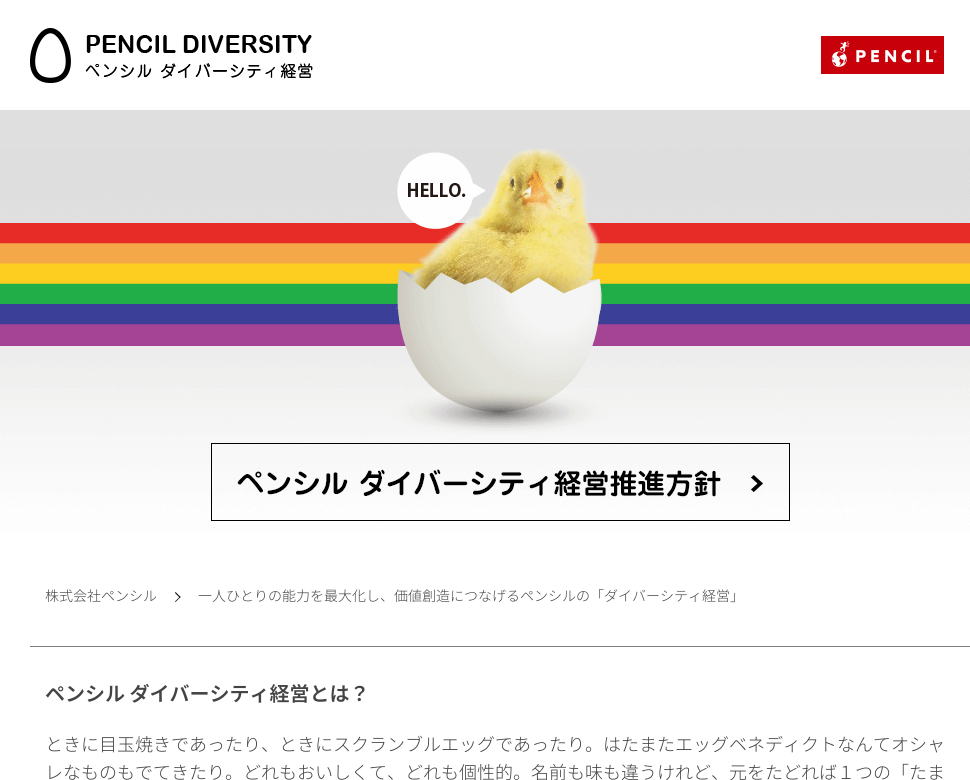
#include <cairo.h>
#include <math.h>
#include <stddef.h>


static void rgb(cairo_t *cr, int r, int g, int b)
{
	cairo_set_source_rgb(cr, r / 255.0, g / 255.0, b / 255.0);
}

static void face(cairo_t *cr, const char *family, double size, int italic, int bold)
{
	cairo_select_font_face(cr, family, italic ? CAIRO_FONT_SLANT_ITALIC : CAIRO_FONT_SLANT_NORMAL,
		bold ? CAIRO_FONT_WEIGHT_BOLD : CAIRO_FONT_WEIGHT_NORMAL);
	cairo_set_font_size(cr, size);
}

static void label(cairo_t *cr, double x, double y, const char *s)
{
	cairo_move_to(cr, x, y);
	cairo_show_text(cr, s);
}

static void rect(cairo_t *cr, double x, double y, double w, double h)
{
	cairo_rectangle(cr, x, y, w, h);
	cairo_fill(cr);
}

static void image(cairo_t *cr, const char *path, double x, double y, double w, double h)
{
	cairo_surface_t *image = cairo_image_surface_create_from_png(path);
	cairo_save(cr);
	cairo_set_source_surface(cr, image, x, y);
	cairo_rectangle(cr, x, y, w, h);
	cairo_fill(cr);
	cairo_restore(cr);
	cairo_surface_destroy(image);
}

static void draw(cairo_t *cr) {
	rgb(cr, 255, 255, 255);
	cairo_paint(cr);
	image(cr, "image0.png", 30, 28, 283, 55);
	image(cr, "image1.png", 821, 36, 123, 38);
	image(cr, "image2.png", 0, 110, 970, 38);
	image(cr, "image3.png", 0, 148, 970, 385);
	face(cr, "Noto Sans JP Light", 14, 0, 0);
	rgb(cr, 68, 68, 68);
	label(cr, 45, 601, "株式会社ペンシル");
	rgb(cr, 0, 0, 0);
	cairo_new_path(cr);
	cairo_move_to(cr, 175.5, 592);
	cairo_line_to(cr, 180.5, 597);
	cairo_line_to(cr, 180, 598);
	cairo_line_to(cr, 175, 593);
	cairo_close_path(cr);
	cairo_fill(cr);
	cairo_new_path(cr);
	cairo_move_to(cr, 180, 596.5);
	cairo_line_to(cr, 180.5, 597);
	cairo_line_to(cr, 175.5, 602);
	cairo_line_to(cr, 175, 601.5);
	cairo_close_path(cr);
	cairo_fill(cr);
	rgb(cr, 68, 68, 68);
	label(cr, 198, 601, "一人ひとりの能力を最大化し、価値創造につなげるペンシルの「ダイバーシティ経営」");
	rgb(cr, 127, 127, 127);
	rect(cr, 30, 646, 940, 1);
	face(cr, "Noto Sans JP SemiBold", 20, 0, 0);
	rgb(cr, 68, 68, 68);
	label(cr, 45, 701, "ペンシル ダイバーシティ経営とは？");
	face(cr, "Noto Sans JP Light", 18, 0, 0);
	label(cr, 45, 751, "ときに目玉焼きであったり、ときにスクランブルエッグであったり。はたまたエッグベネディクトなんてオシャ");
	label(cr, 45, 779, "レなものもでてきたり。どれもおいしくて、どれも個性的。名前も味も違うけれど、元をたどれば１つの「たま");
}

int main(void) {
	cairo_surface_t *surface = cairo_image_surface_create(CAIRO_FORMAT_RGB24, 970, 780);
	cairo_t *cr = cairo_create(surface);
	cairo_font_options_t *options = cairo_font_options_create();
	cairo_font_options_set_hint_metrics(options, CAIRO_HINT_METRICS_OFF);
	cairo_font_options_set_hint_style(options, CAIRO_HINT_STYLE_NONE);
	cairo_set_font_options(cr, options);
	cairo_set_miter_limit(cr, 4);
	draw(cr);
	cairo_surface_write_to_png(surface, "render.png");
	cairo_font_options_destroy(options);
	cairo_destroy(cr);
	cairo_surface_destroy(surface);
	return 0;
}
